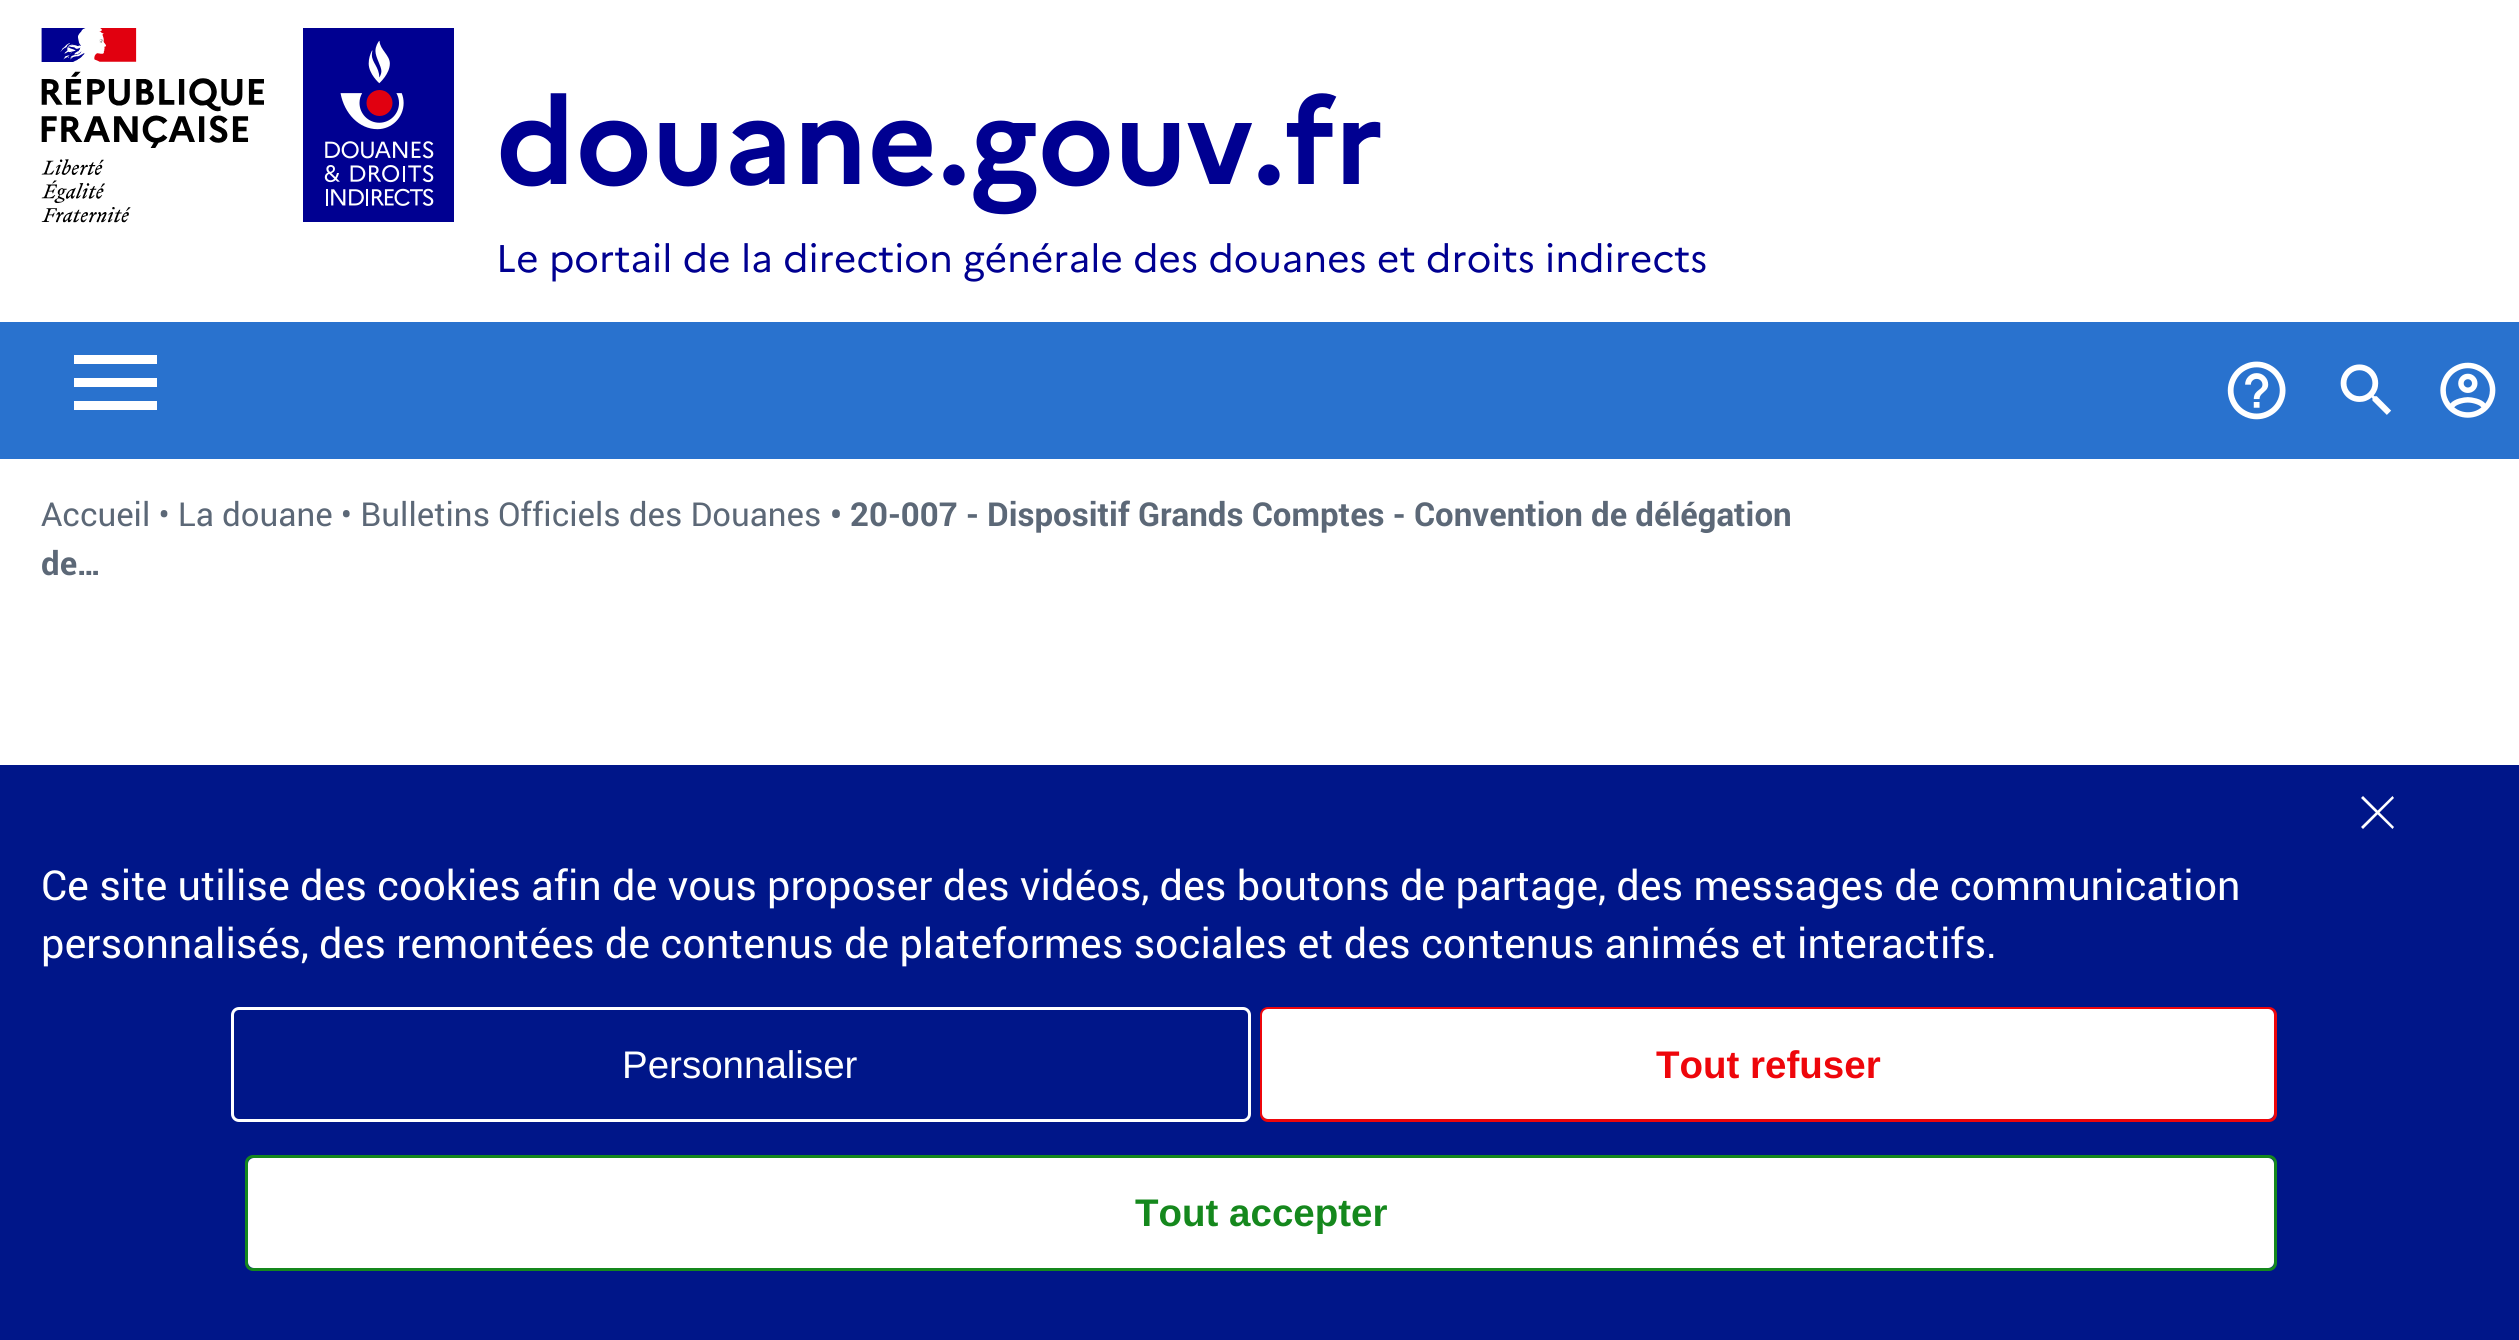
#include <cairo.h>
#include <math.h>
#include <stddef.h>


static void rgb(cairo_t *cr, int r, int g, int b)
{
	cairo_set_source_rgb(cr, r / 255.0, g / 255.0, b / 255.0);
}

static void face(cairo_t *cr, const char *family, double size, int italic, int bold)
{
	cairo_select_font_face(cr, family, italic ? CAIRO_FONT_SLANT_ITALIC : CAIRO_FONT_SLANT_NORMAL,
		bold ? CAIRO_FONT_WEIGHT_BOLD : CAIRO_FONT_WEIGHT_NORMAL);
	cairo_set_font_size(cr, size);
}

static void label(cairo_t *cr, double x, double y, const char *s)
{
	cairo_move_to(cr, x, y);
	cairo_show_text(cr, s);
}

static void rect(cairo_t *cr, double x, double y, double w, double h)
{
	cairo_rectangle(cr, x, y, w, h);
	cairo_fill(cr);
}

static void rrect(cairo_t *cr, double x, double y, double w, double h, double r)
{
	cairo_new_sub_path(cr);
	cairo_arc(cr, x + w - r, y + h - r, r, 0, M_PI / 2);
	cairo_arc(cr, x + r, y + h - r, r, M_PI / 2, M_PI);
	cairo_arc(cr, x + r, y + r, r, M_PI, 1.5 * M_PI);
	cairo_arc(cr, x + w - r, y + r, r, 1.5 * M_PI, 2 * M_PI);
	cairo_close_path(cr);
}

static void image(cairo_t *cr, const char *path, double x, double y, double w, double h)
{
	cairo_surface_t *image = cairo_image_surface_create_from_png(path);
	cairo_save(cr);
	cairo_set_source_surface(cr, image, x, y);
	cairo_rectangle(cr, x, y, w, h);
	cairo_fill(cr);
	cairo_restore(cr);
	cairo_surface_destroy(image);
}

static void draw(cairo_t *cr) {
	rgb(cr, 255, 255, 255);
	cairo_paint(cr);
	image(cr, "image0.png", 41, 28, 223, 195);
	image(cr, "image1.png", 303, 28, 151, 194);
	face(cr, "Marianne", 121, 0, 1);
	rgb(cr, 0, 0, 145);
	label(cr, 496, 184, "douane.gouv.fr");
	face(cr, "Marianne", 38.5, 0, 0);
	label(cr, 496, 272, "Le portail de la direction générale des douanes et droits indirects");
	rgb(cr, 41, 114, 206);
	rect(cr, 0, 322, 2519, 137);
	rgb(cr, 255, 255, 255);
	cairo_new_path(cr);
	cairo_move_to(cr, 74, 410);
	cairo_line_to(cr, 157, 410);
	cairo_line_to(cr, 157, 401);
	cairo_line_to(cr, 74, 401);
	cairo_close_path(cr);
	cairo_move_to(cr, 74, 387);
	cairo_line_to(cr, 157, 387);
	cairo_line_to(cr, 157, 378);
	cairo_line_to(cr, 74, 378);
	cairo_close_path(cr);
	cairo_move_to(cr, 74, 355);
	cairo_line_to(cr, 74, 364);
	cairo_line_to(cr, 157, 364);
	cairo_line_to(cr, 157, 355);
	cairo_close_path(cr);
	cairo_fill(cr);
	image(cr, "image2.png", 2227, 361, 59, 59);
	image(cr, "image3.png", 2340, 364, 52, 51);
	image(cr, "image4.png", 2440, 362, 56, 56);
	face(cr, "Roboto", 33, 0, 0);
	rgb(cr, 92, 104, 119);
	label(cr, 41, 526, "Accueil • La douane • Bulletins Officiels des Douanes");
	face(cr, "Roboto", 33, 0, 1);
	label(cr, 830, 526, "• 20-007 - Dispositif Grands Comptes - Convention de délégation");
	label(cr, 41, 575, "de…");
	rgb(cr, 0, 22, 137);
	rect(cr, 0, 765, 2519, 575);
	rgb(cr, 255, 255, 255);
	cairo_new_path(cr);
	cairo_move_to(cr, 2392.5, 796);
	cairo_line_to(cr, 2394, 798);
	cairo_line_to(cr, 2363, 829);
	cairo_line_to(cr, 2361, 827);
	cairo_close_path(cr);
	cairo_fill(cr);
	cairo_new_path(cr);
	cairo_move_to(cr, 2361, 798);
	cairo_line_to(cr, 2363, 796);
	cairo_line_to(cr, 2394, 827);
	cairo_line_to(cr, 2392.5, 829);
	cairo_close_path(cr);
	cairo_fill(cr);
	face(cr, "Roboto", 41.25, 0, 0);
	label(cr, 41, 900, "Ce site utilise des cookies afin de vous proposer des vidéos, des boutons de partage, des messages de communication");
	label(cr, 41, 958, "personnalisés, des remontées de contenus de plateformes sociales et des contenus animés et interactifs.");
	rrect(cr, 232.5, 1008.5, 1017, 112, 6.5);
	cairo_set_line_width(cr, 3);
	cairo_stroke(cr);
	face(cr, "Liberation Sans", 38.5, 0, 0);
	label(cr, 622, 1078, "Personnaliser");
	rrect(cr, 1261.5, 1008.5, 1014, 112, 6.5);
	rgb(cr, 238, 6, 11);
	cairo_stroke(cr);
	rgb(cr, 255, 255, 255);
	rrect(cr, 1262, 1009, 1012, 110, 6);
	cairo_fill(cr);
	face(cr, "Liberation Sans", 38.5, 0, 1);
	rgb(cr, 238, 6, 11);
	label(cr, 1656, 1078, "Tout refuser");
	rrect(cr, 246.5, 1156.5, 2029, 113, 6.5);
	rgb(cr, 21, 136, 29);
	cairo_stroke(cr);
	rgb(cr, 255, 255, 255);
	rrect(cr, 248, 1158, 2026, 110, 6);
	cairo_fill(cr);
	rgb(cr, 21, 136, 29);
	label(cr, 1135, 1226, "Tout accepter");
}

int main(void) {
	cairo_surface_t *surface = cairo_image_surface_create(CAIRO_FORMAT_RGB24, 2519, 1340);
	cairo_t *cr = cairo_create(surface);
	cairo_font_options_t *options = cairo_font_options_create();
	cairo_font_options_set_hint_metrics(options, CAIRO_HINT_METRICS_OFF);
	cairo_font_options_set_hint_style(options, CAIRO_HINT_STYLE_NONE);
	cairo_set_font_options(cr, options);
	cairo_set_miter_limit(cr, 4);
	draw(cr);
	cairo_surface_write_to_png(surface, "render.png");
	cairo_font_options_destroy(options);
	cairo_destroy(cr);
	cairo_surface_destroy(surface);
	return 0;
}
